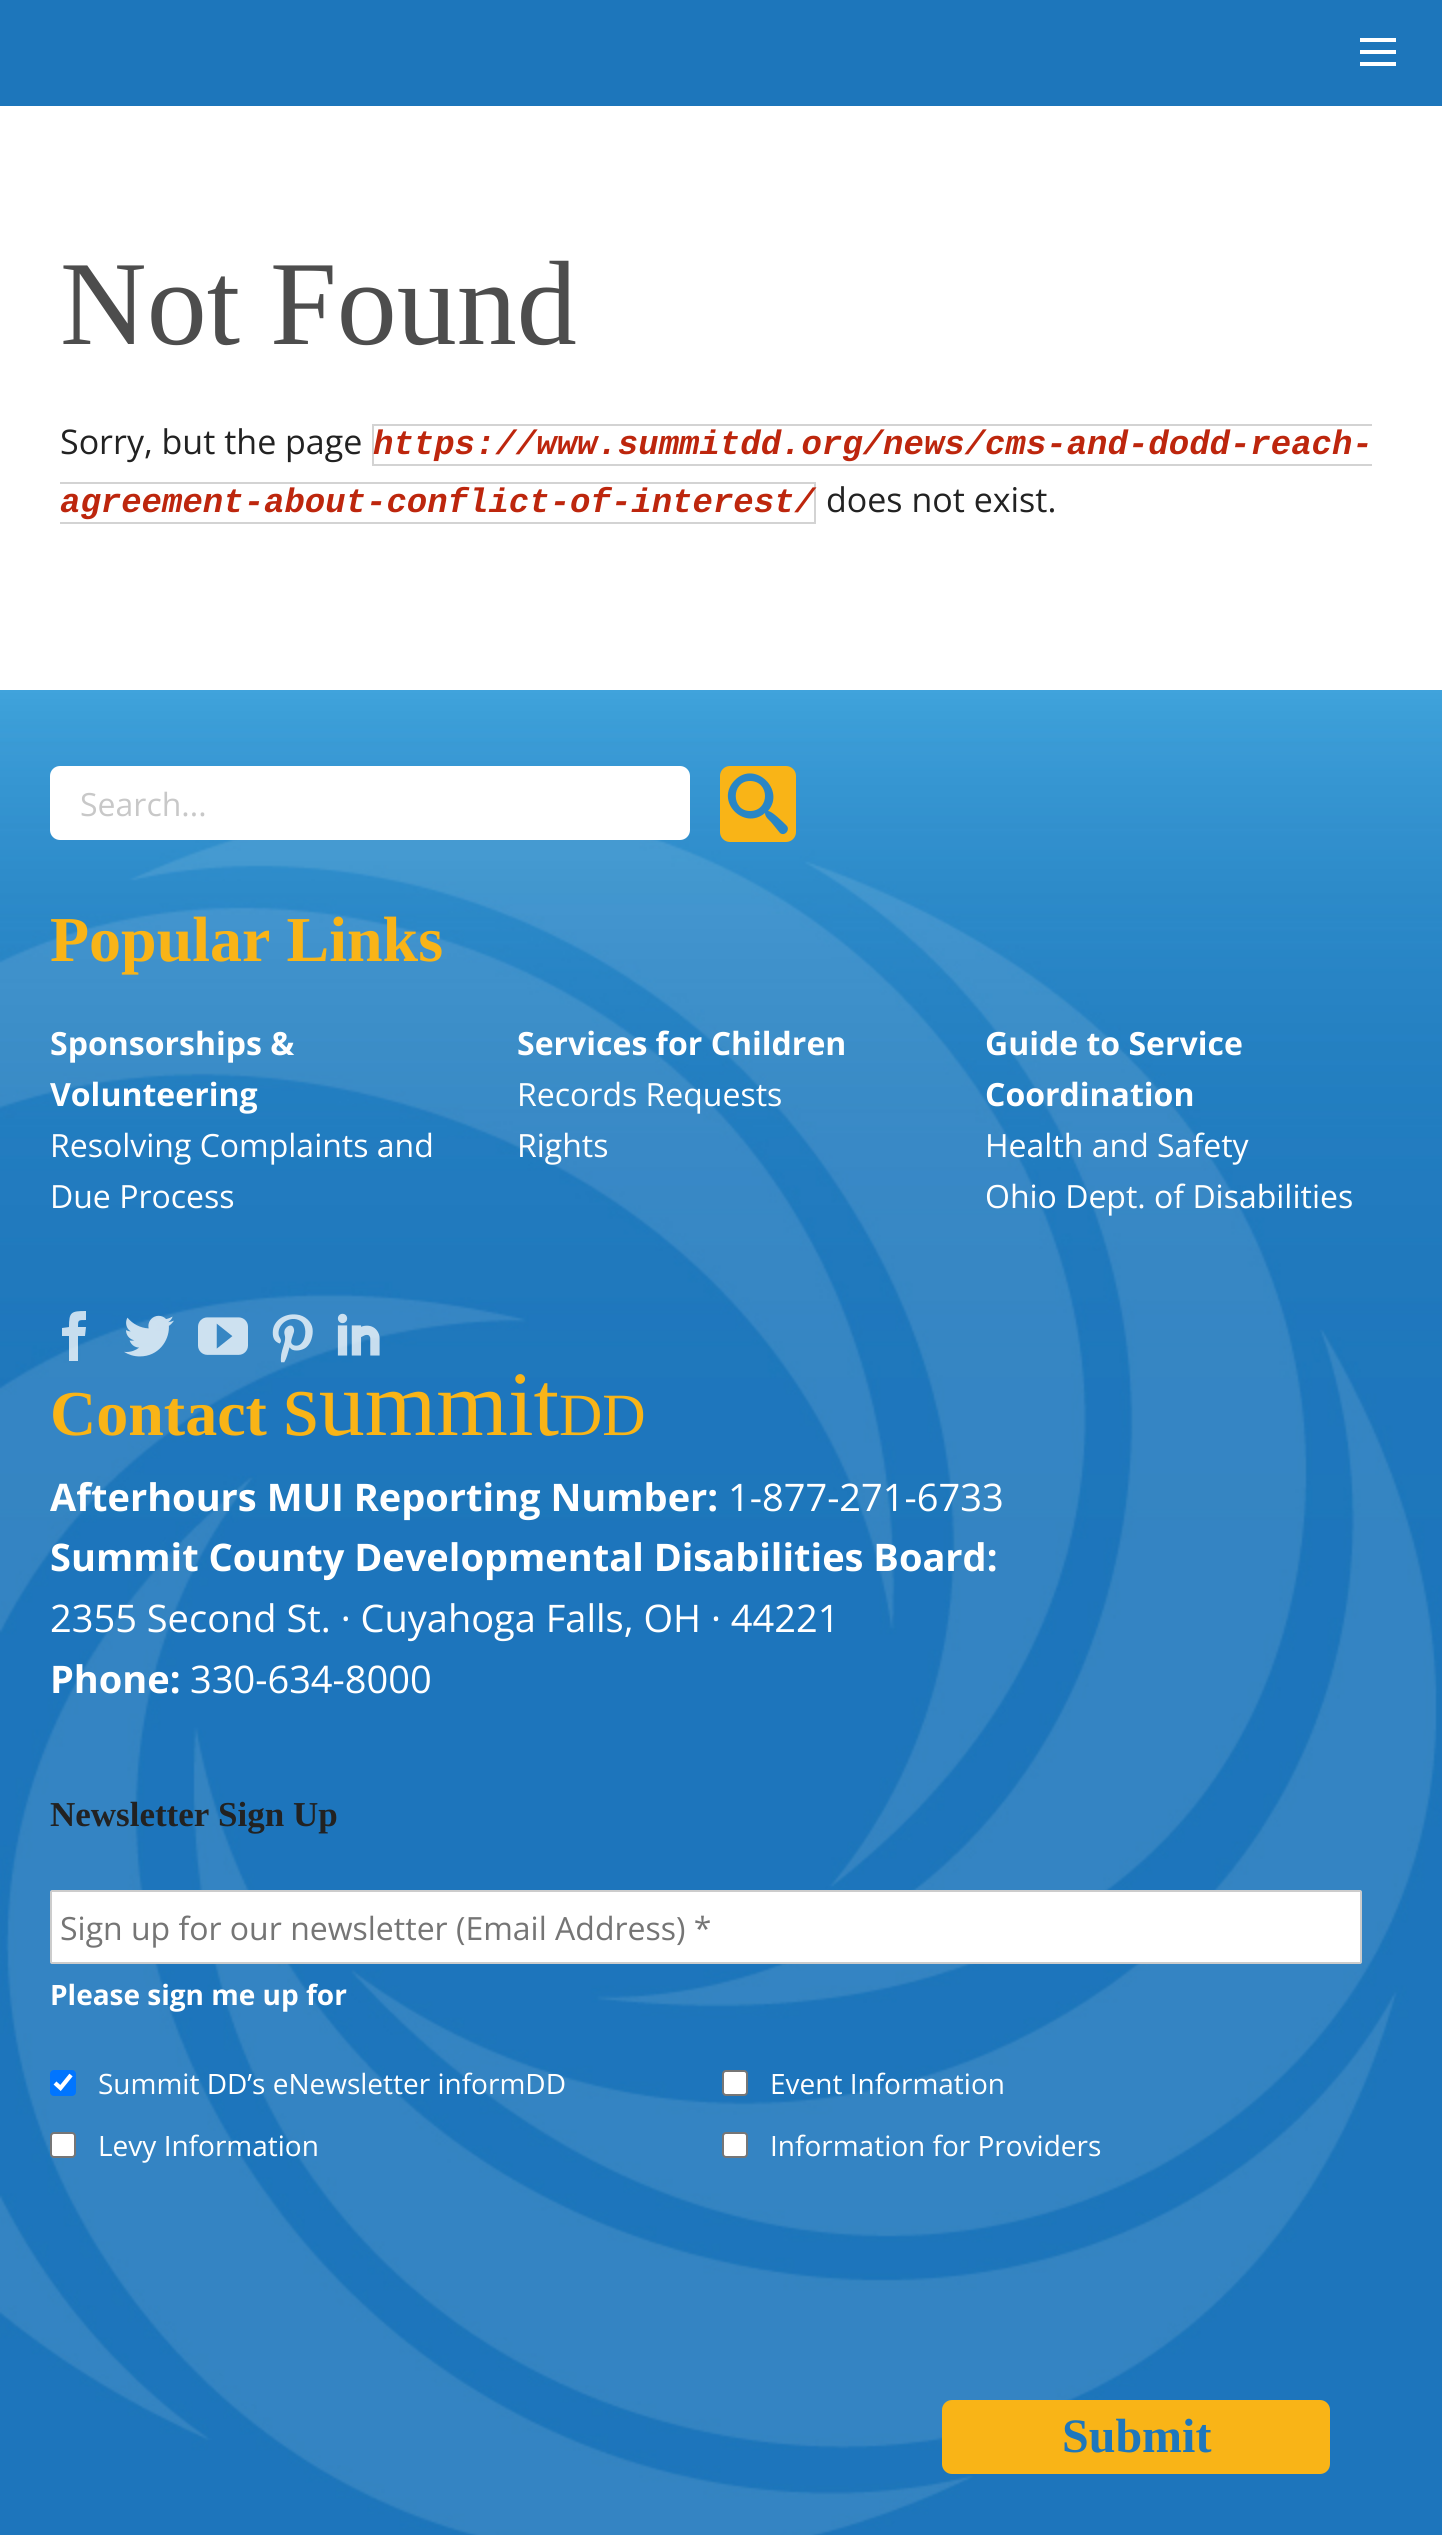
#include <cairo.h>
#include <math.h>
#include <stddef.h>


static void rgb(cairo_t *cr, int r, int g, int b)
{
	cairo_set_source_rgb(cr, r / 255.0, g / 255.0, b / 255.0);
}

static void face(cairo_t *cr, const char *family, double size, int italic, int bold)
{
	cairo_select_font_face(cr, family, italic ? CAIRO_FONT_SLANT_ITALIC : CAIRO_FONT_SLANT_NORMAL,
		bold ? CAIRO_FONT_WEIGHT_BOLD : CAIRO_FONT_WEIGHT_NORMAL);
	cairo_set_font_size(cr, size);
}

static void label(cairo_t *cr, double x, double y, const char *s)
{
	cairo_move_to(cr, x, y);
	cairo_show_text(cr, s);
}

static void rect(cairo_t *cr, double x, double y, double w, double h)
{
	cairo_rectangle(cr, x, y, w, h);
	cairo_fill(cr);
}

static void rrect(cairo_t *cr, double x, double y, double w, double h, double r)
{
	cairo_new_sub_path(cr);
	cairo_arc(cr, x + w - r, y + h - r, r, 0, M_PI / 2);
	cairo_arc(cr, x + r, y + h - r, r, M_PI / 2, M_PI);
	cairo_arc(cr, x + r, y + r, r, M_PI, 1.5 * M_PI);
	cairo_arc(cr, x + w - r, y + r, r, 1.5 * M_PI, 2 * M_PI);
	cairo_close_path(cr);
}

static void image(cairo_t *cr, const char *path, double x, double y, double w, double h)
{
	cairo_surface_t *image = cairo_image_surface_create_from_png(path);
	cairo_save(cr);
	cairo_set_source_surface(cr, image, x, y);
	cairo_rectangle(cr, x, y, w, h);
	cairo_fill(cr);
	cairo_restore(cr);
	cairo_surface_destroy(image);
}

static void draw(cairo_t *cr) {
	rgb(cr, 255, 255, 255);
	cairo_paint(cr);
	rgb(cr, 29, 118, 187);
	rect(cr, 0, 0, 1442, 106);
	rgb(cr, 255, 255, 255);
	rect(cr, 1360, 62, 36, 4);
	rect(cr, 1360, 50, 36, 4);
	rect(cr, 1360, 38, 36, 4);
	face(cr, "Liberation Serif", 120, 0, 0);
	rgb(cr, 77, 77, 77);
	label(cr, 60, 344, "Not Found");
	face(cr, "Open Sans", 34, 0, 0);
	rgb(cr, 34, 34, 34);
	label(cr, 60, 454, "Sorry, but the page");
	rgb(cr, 211, 211, 211);
	rect(cr, 372, 424, 1000, 2);
	rect(cr, 372, 464, 1000, 2);
	rect(cr, 372, 424, 2, 42);
	face(cr, "Liberation Mono", 34, 1, 1);
	rgb(cr, 189, 38, 13);
	label(cr, 373, 454, "https://www.summitdd.org/news/cms-and-dodd-reach-");
	rgb(cr, 211, 211, 211);
	rect(cr, 60, 482, 756, 2);
	rect(cr, 814, 482, 2, 42);
	rgb(cr, 189, 38, 13);
	label(cr, 60, 512, "agreement-about-conflict-of-interest/");
	rgb(cr, 211, 211, 211);
	rect(cr, 60, 522, 756, 2);
	face(cr, "Open Sans", 34, 0, 0);
	rgb(cr, 34, 34, 34);
	label(cr, 826, 512, "does not exist.");
	image(cr, "image0.png", 0, 690, 1442, 1845);
	rgb(cr, 255, 255, 255);
	rrect(cr, 50, 766, 640, 74, 10);
	cairo_fill(cr);
	face(cr, "Open Sans", 32, 0, 0);
	rgb(cr, 200, 200, 200);
	label(cr, 80, 816, "Search...");
	rgb(cr, 249, 180, 23);
	rrect(cr, 720, 766, 76, 76, 10);
	cairo_fill(cr);
	rgb(cr, 41, 134, 198);
	cairo_new_path(cr);
	cairo_move_to(cr, 786, 825);
	cairo_curve_to(cr, 783, 822, 772, 811, 768, 811);
	cairo_curve_to(cr, 786, 790, 755, 760, 735, 780);
	cairo_curve_to(cr, 714, 801, 744, 831, 765, 813);
	cairo_curve_to(cr, 765, 817, 769, 820, 771, 822);
	cairo_line_to(cr, 780, 833);
	cairo_curve_to(cr, 785, 837, 791, 829, 786, 825);
	cairo_close_path(cr);
	cairo_move_to(cr, 750, 811);
	cairo_curve_to(cr, 731, 811, 731, 781, 750, 781);
	cairo_curve_to(cr, 770, 781, 770, 811, 750, 811);
	cairo_close_path(cr);
	cairo_fill(cr);
	face(cr, "Liberation Serif", 64, 0, 1);
	rgb(cr, 249, 180, 23);
	label(cr, 50, 961, "Popular Links");
	face(cr, "Open Sans", 32, 0, 1);
	rgb(cr, 255, 255, 255);
	label(cr, 50, 1055, "Sponsorships &");
	label(cr, 50, 1106, "Volunteering");
	face(cr, "Open Sans", 32, 0, 0);
	label(cr, 50, 1157, "Resolving Complaints and");
	label(cr, 50, 1208, "Due Process");
	face(cr, "Open Sans", 32, 0, 1);
	label(cr, 517, 1055, "Services for Children");
	face(cr, "Open Sans", 32, 0, 0);
	label(cr, 517, 1106, "Records Requests");
	label(cr, 517, 1157, "Rights");
	face(cr, "Open Sans", 32, 0, 1);
	label(cr, 985, 1055, "Guide to Service");
	label(cr, 985, 1106, "Coordination");
	face(cr, "Open Sans", 32, 0, 0);
	label(cr, 985, 1157, "Health and Safety");
	label(cr, 985, 1208, "Ohio Dept. of Disabilities");
	cairo_set_source_rgba(cr, 1, 1, 1, 0.75);
	cairo_new_path(cr);
	cairo_move_to(cr, 78, 1361);
	cairo_line_to(cr, 69, 1361);
	cairo_line_to(cr, 69, 1336);
	cairo_line_to(cr, 62, 1336);
	cairo_line_to(cr, 62, 1328);
	cairo_line_to(cr, 69, 1327);
	cairo_curve_to(cr, 69, 1312, 71, 1311, 86, 1311);
	cairo_line_to(cr, 86, 1320);
	cairo_curve_to(cr, 78, 1320, 78, 1320, 78, 1327);
	cairo_line_to(cr, 86, 1327);
	cairo_line_to(cr, 85, 1336);
	cairo_line_to(cr, 78, 1336);
	cairo_close_path(cr);
	cairo_fill(cr);
	image(cr, "image1.png", 124, 1315, 50, 42);
	image(cr, "image2.png", 198, 1317, 50, 38);
	image(cr, "image3.png", 272, 1314, 41, 49);
	image(cr, "image4.png", 337, 1313, 43, 43);
	face(cr, "Liberation Serif", 64, 0, 1);
	rgb(cr, 249, 180, 23);
	label(cr, 50, 1435, "Contact");
	face(cr, "Liberation Serif", 92, 0, 0);
	label(cr, 283, 1435, "summit");
	face(cr, "Liberation Serif", 60, 0, 0);
	label(cr, 559, 1435, "DD");
	face(cr, "Open Sans", 38, 0, 1);
	rgb(cr, 255, 255, 255);
	label(cr, 50, 1511, "Afterhours MUI Reporting Number:");
	face(cr, "Open Sans", 38, 0, 0);
	label(cr, 728, 1511, "1-877-271-6733");
	face(cr, "Open Sans", 38, 0, 1);
	label(cr, 50, 1571, "Summit County Developmental Disabilities Board:");
	face(cr, "Open Sans", 38, 0, 0);
	label(cr, 50, 1632, "2355 Second St. · Cuyahoga Falls, OH · 44221");
	face(cr, "Open Sans", 38, 0, 1);
	label(cr, 50, 1693, "Phone:");
	face(cr, "Open Sans", 38, 0, 0);
	label(cr, 190, 1693, "330-634-8000");
	face(cr, "Liberation Serif", 35, 0, 1);
	rgb(cr, 34, 34, 34);
	label(cr, 50, 1826, "Newsletter Sign Up");
	rgb(cr, 255, 255, 255);
	rrect(cr, 51, 1891, 1310, 72, 1);
	cairo_fill_preserve(cr);
	rgb(cr, 204, 204, 204);
	cairo_stroke(cr);
	face(cr, "Open Sans", 32, 0, 0);
	rgb(cr, 117, 117, 117);
	label(cr, 60, 1940, "Sign up for our newsletter (Email Address) *");
	face(cr, "Open Sans", 28, 0, 1);
	rgb(cr, 255, 255, 255);
	label(cr, 50, 2005, "Please sign me up for");
	rgb(cr, 0, 117, 255);
	rrect(cr, 50, 2070, 26, 26, 4);
	cairo_fill(cr);
	cairo_new_path(cr);
	cairo_move_to(cr, 55, 2083);
	cairo_line_to(cr, 60.5, 2088);
	cairo_line_to(cr, 71, 2075);
	rgb(cr, 255, 255, 255);
	cairo_set_line_width(cr, 4.2);
	cairo_stroke(cr);
	face(cr, "Open Sans", 28, 0, 0);
	label(cr, 98, 2094, "Summit DD’s eNewsletter informDD");
	rrect(cr, 723, 2071, 24, 24, 3);
	cairo_fill_preserve(cr);
	rgb(cr, 118, 118, 118);
	cairo_set_line_width(cr, 2);
	cairo_stroke(cr);
	rgb(cr, 255, 255, 255);
	label(cr, 770, 2094, "Event Information");
	rrect(cr, 51, 2133, 24, 24, 3);
	cairo_fill_preserve(cr);
	rgb(cr, 118, 118, 118);
	cairo_stroke(cr);
	rgb(cr, 255, 255, 255);
	label(cr, 98, 2156, "Levy Information");
	rrect(cr, 723, 2133, 24, 24, 3);
	cairo_fill_preserve(cr);
	rgb(cr, 118, 118, 118);
	cairo_stroke(cr);
	rgb(cr, 255, 255, 255);
	label(cr, 770, 2156, "Information for Providers");
	rgb(cr, 249, 180, 23);
	rrect(cr, 942, 2400, 388, 74, 10);
	cairo_fill(cr);
	face(cr, "Liberation Serif", 48, 0, 1);
	rgb(cr, 30, 119, 188);
	label(cr, 1062, 2452, "Submit");
}

int main(void) {
	cairo_surface_t *surface = cairo_image_surface_create(CAIRO_FORMAT_RGB24, 1442, 2535);
	cairo_t *cr = cairo_create(surface);
	cairo_font_options_t *options = cairo_font_options_create();
	cairo_font_options_set_hint_metrics(options, CAIRO_HINT_METRICS_OFF);
	cairo_font_options_set_hint_style(options, CAIRO_HINT_STYLE_NONE);
	cairo_set_font_options(cr, options);
	cairo_set_miter_limit(cr, 4);
	draw(cr);
	cairo_surface_write_to_png(surface, "render.png");
	cairo_font_options_destroy(options);
	cairo_destroy(cr);
	cairo_surface_destroy(surface);
	return 0;
}
